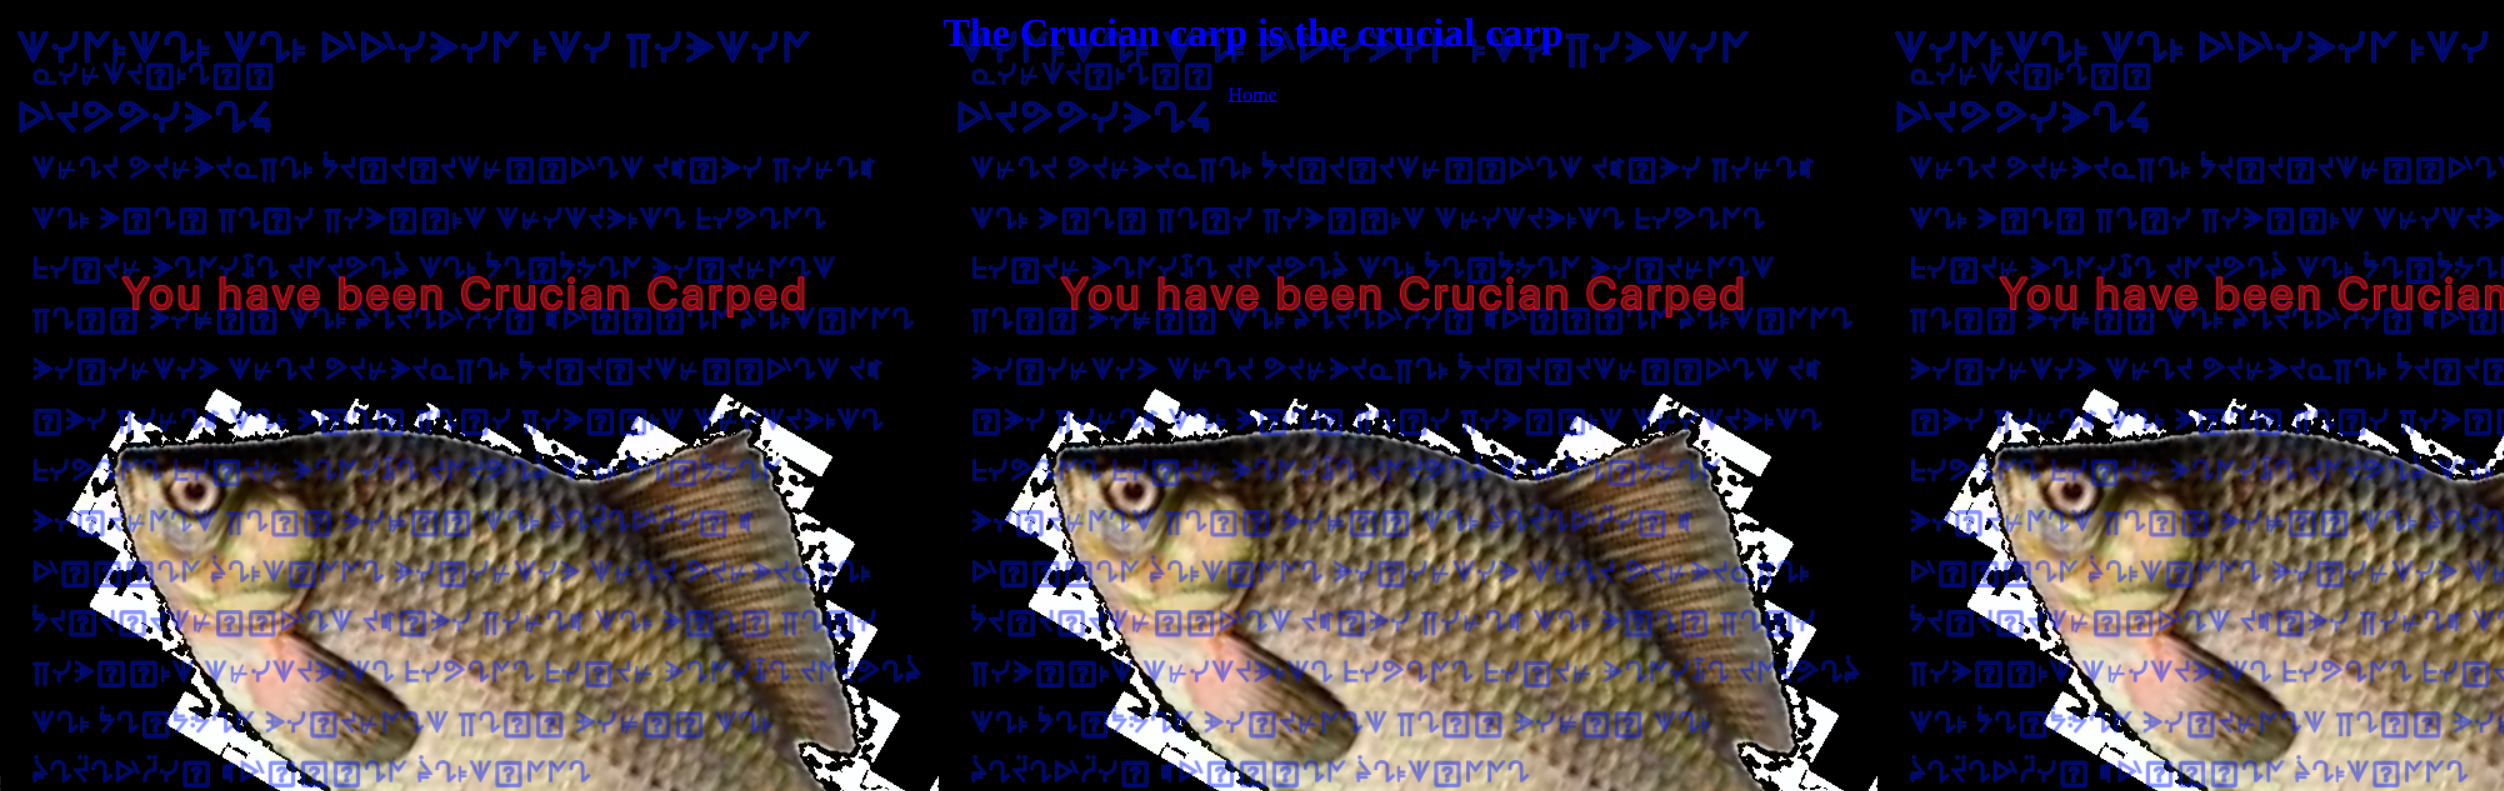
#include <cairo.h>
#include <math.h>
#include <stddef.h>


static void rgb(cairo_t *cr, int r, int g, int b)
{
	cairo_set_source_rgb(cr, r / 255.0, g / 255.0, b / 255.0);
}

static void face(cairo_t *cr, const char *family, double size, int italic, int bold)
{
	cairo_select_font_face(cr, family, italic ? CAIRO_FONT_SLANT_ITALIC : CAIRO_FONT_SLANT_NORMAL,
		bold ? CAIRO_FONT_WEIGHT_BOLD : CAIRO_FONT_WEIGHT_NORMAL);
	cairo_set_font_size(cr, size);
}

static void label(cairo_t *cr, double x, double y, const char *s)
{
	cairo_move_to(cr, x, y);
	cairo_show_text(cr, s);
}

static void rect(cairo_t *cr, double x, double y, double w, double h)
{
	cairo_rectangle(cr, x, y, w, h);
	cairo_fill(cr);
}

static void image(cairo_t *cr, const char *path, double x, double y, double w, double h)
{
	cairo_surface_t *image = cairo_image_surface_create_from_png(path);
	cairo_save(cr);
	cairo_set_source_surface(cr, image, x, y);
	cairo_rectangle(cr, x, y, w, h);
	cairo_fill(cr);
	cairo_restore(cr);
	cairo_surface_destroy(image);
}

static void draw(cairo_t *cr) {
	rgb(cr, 255, 255, 255);
	cairo_paint(cr);
	image(cr, "image0.png", 0, 0, 2504, 791);
	face(cr, "Liberation Serif", 40, 0, 1);
	rgb(cr, 0, 0, 255);
	label(cr, 943, 46, "The Crucian carp is the crucial carp");
	rgb(cr, 0, 0, 238);
	rect(cr, 1228, 101, 50, 1);
	face(cr, "Liberation Serif", 20, 0, 0);
	label(cr, 1228, 101, "Home");
}

int main(void) {
	cairo_surface_t *surface = cairo_image_surface_create(CAIRO_FORMAT_RGB24, 2504, 791);
	cairo_t *cr = cairo_create(surface);
	cairo_font_options_t *options = cairo_font_options_create();
	cairo_font_options_set_hint_metrics(options, CAIRO_HINT_METRICS_OFF);
	cairo_font_options_set_hint_style(options, CAIRO_HINT_STYLE_NONE);
	cairo_set_font_options(cr, options);
	cairo_set_miter_limit(cr, 4);
	draw(cr);
	cairo_surface_write_to_png(surface, "render.png");
	cairo_font_options_destroy(options);
	cairo_destroy(cr);
	cairo_surface_destroy(surface);
	return 0;
}
